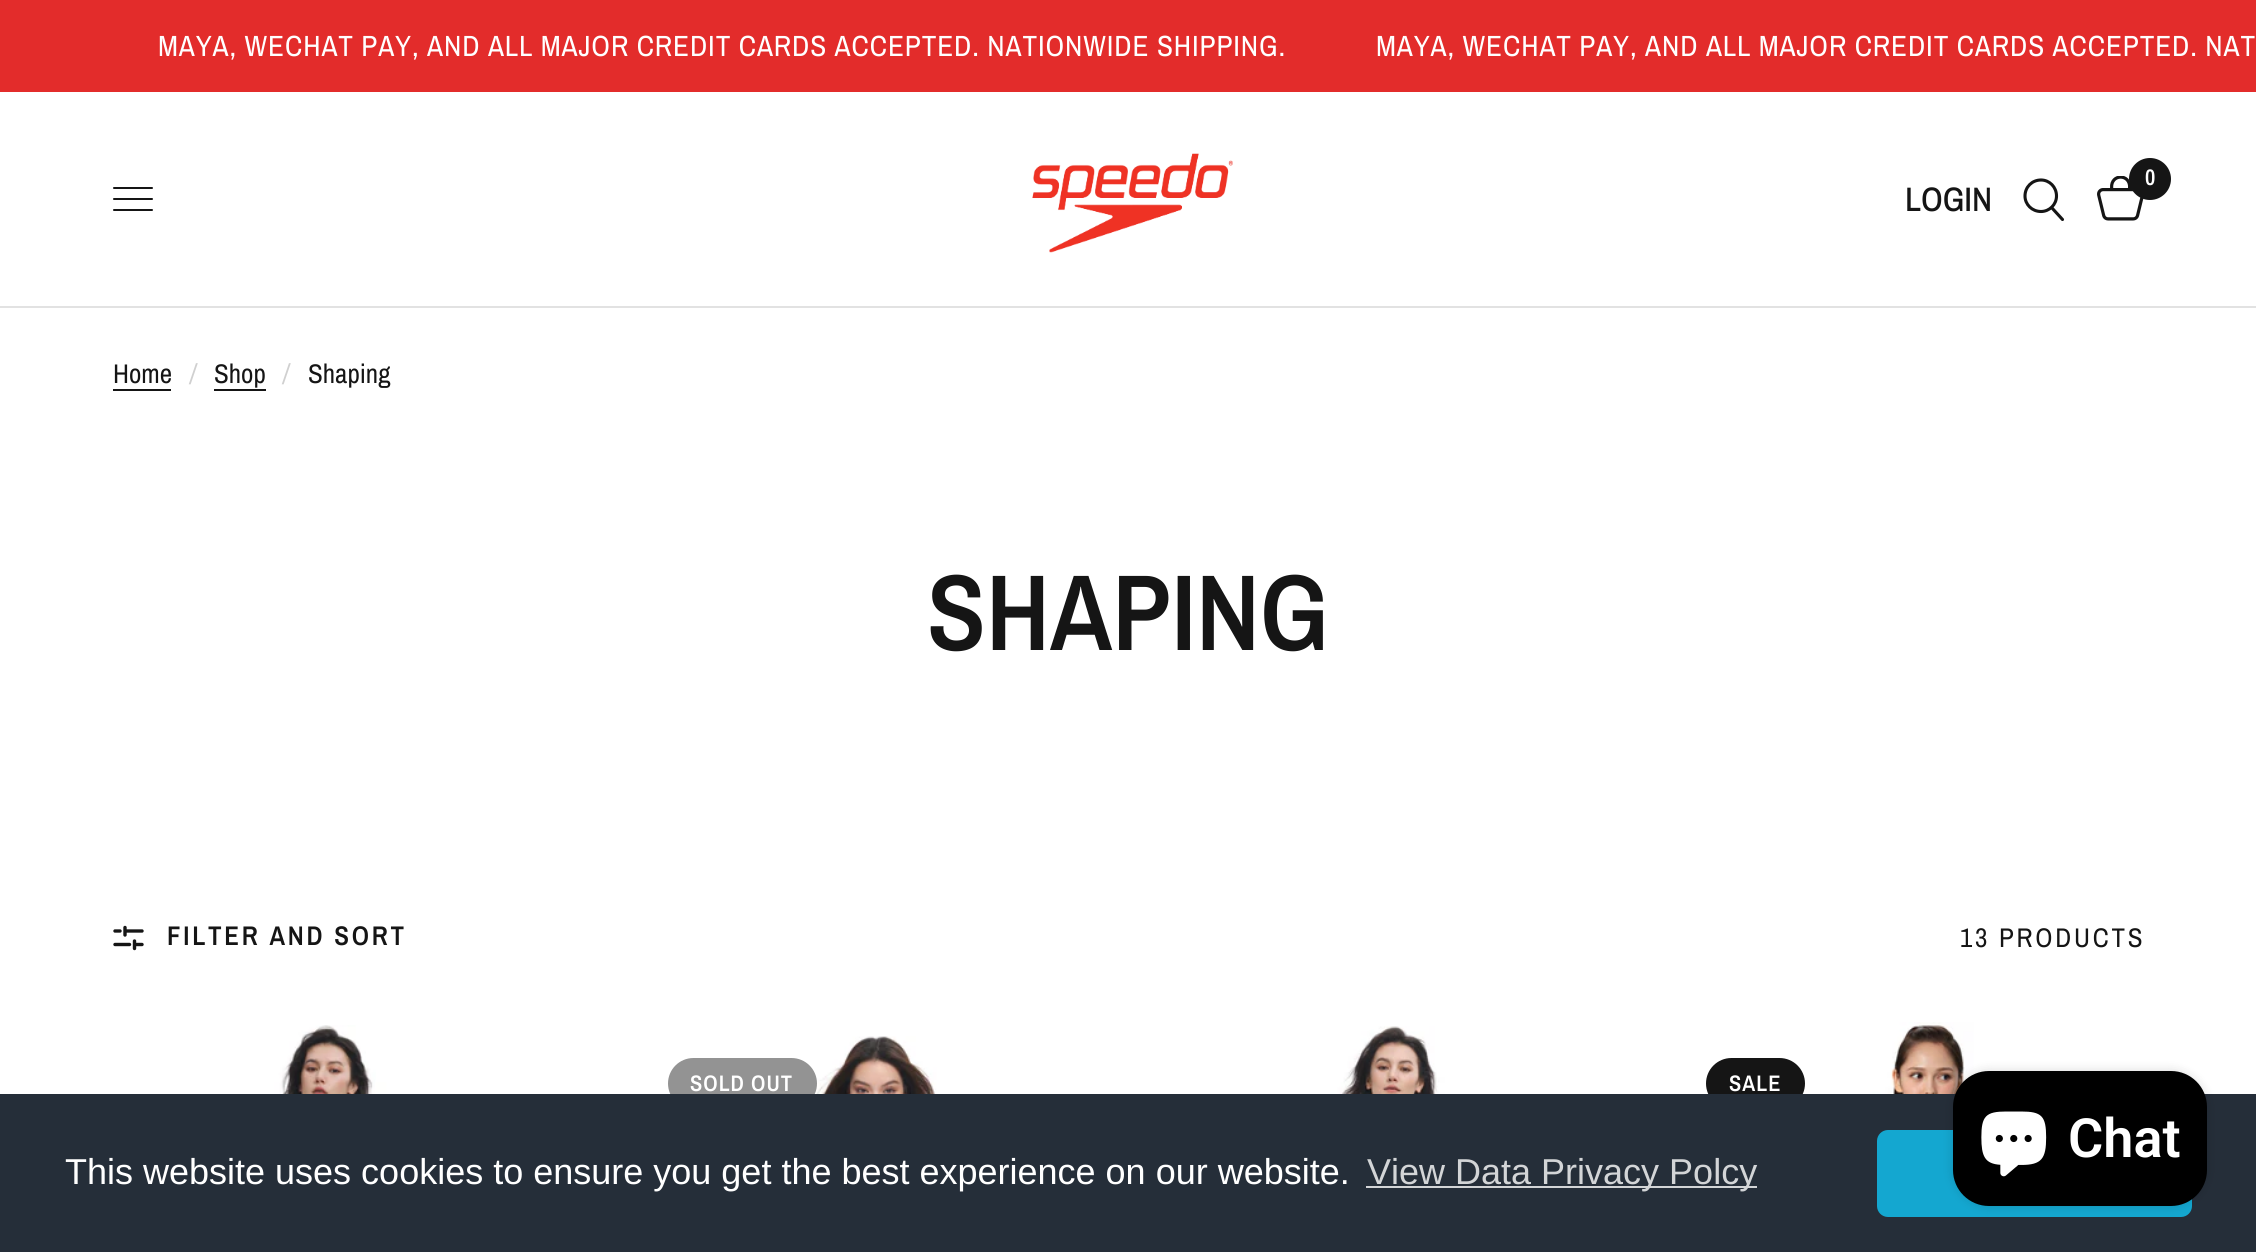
#include <cairo.h>
#include <math.h>
#include <stddef.h>


static void rgb(cairo_t *cr, int r, int g, int b)
{
	cairo_set_source_rgb(cr, r / 255.0, g / 255.0, b / 255.0);
}

static void face(cairo_t *cr, const char *family, double size, int italic, int bold)
{
	cairo_select_font_face(cr, family, italic ? CAIRO_FONT_SLANT_ITALIC : CAIRO_FONT_SLANT_NORMAL,
		bold ? CAIRO_FONT_WEIGHT_BOLD : CAIRO_FONT_WEIGHT_NORMAL);
	cairo_set_font_size(cr, size);
}

static void label(cairo_t *cr, double x, double y, const char *s)
{
	cairo_move_to(cr, x, y);
	cairo_show_text(cr, s);
}

static void tracked(cairo_t *cr, double x, double y, const char *s, double letter, double word)
{
	cairo_move_to(cr, x, y);
	while (*s) {
		char ch[5] = {0};
		int n = 0;
		do ch[n++] = *s++; while ((*s & 0xC0) == 0x80);
		cairo_show_text(cr, ch);
		cairo_rel_move_to(cr, letter + word * (*ch == ' '), 0);
	}
}

static void rect(cairo_t *cr, double x, double y, double w, double h)
{
	cairo_rectangle(cr, x, y, w, h);
	cairo_fill(cr);
}

static void rrect(cairo_t *cr, double x, double y, double w, double h, double r)
{
	cairo_new_sub_path(cr);
	cairo_arc(cr, x + w - r, y + h - r, r, 0, M_PI / 2);
	cairo_arc(cr, x + r, y + h - r, r, M_PI / 2, M_PI);
	cairo_arc(cr, x + r, y + r, r, M_PI, 1.5 * M_PI);
	cairo_arc(cr, x + w - r, y + r, r, 1.5 * M_PI, 2 * M_PI);
	cairo_close_path(cr);
}

static void soft_shadow(cairo_t *cr, double x, double y, double w, double h, double r, double blur, double alpha)
{
	cairo_push_group_with_content(cr, CAIRO_CONTENT_ALPHA);
	cairo_set_operator(cr, CAIRO_OPERATOR_SOURCE);
	for (int i = 15; i >= -15 && fmin(w, h) + blur * i / 3 > 0; i -= 2) {
		double e = blur * i / 6;
		cairo_set_source_rgba(cr, 0, 0, 0, alpha * erfc((i - 1) / 8.5) / 2);
		rrect(cr, x - e, y - e, w + 2 * e, h + 2 * e, fmax(0, fmin(r + e + blur * .6, fmin(w, h) / 2 + e)));
		cairo_fill(cr);
	}
	cairo_pattern_t *soft = cairo_pop_group(cr);
	cairo_mask(cr, soft);
	cairo_pattern_destroy(soft);
}

static void image(cairo_t *cr, const char *path, double x, double y, double w, double h)
{
	cairo_surface_t *image = cairo_image_surface_create_from_png(path);
	cairo_save(cr);
	cairo_set_source_surface(cr, image, x, y);
	cairo_rectangle(cr, x, y, w, h);
	cairo_fill(cr);
	cairo_restore(cr);
	cairo_surface_destroy(image);
}

static void draw(cairo_t *cr) {
	rgb(cr, 255, 255, 255);
	cairo_paint(cr);
	rgb(cr, 227, 44, 43);
	rect(cr, 0, 0, 2256, 92);
	face(cr, "Archivo Narrow", 29.25, 0, 0);
	rgb(cr, 255, 255, 255);
	tracked(cr, 158, 56, "MAYA, WECHAT PAY, AND ALL MAJOR CREDIT CARDS ACCEPTED. NATIONWIDE SHIPPING.", 0.88, 0);
	tracked(cr, 1376, 56, "MAYA, WECHAT PAY, AND ALL MAJOR CREDIT CARDS ACCEPTED. NAT", 0.88, 0);
	rgb(cr, 226, 226, 226);
	rect(cr, 0, 306, 2256, 2);
	rgb(cr, 21, 21, 21);
	rrect(cr, 113, 187, 40, 2, 1);
	cairo_fill(cr);
	rrect(cr, 113, 198, 40, 2, 1);
	cairo_fill(cr);
	rrect(cr, 113, 209, 40, 2, 1);
	cairo_fill(cr);
	image(cr, "image0.png", 1032, 153, 201, 100);
	face(cr, "Archivo Narrow Medium", 34, 0, 0);
	label(cr, 1905, 211, "LOGIN");
	cairo_new_path(cr);
	cairo_move_to(cr, 2052, 208);
	cairo_line_to(cr, 2062.5, 219.5);
	cairo_move_to(cr, 2056.5, 196);
	cairo_curve_to(cr, 2056.5, 204.5, 2049.5, 211.5, 2041, 211.5);
	cairo_curve_to(cr, 2032, 211.5, 2025, 204.5, 2025, 196);
	cairo_curve_to(cr, 2025, 187, 2032, 180, 2041, 180);
	cairo_curve_to(cr, 2049.5, 180, 2056.5, 187, 2056.5, 196);
	cairo_close_path(cr);
	cairo_set_line_width(cr, 3.1);
	cairo_set_line_cap(cr, CAIRO_LINE_CAP_ROUND);
	cairo_set_line_join(cr, CAIRO_LINE_JOIN_ROUND);
	cairo_stroke(cr);
	image(cr, "image1.png", 2097, 176, 47, 45);
	cairo_arc(cr, 2150, 179, 21, 0, 2 * M_PI);
	cairo_fill(cr);
	face(cr, "Archivo Narrow SemiBold", 22.5, 0, 0);
	rgb(cr, 255, 255, 255);
	label(cr, 2145, 185, "0");
	face(cr, "Archivo Narrow", 27, 0, 0);
	rgb(cr, 21, 21, 21);
	label(cr, 113, 383, "Home");
	rect(cr, 113, 389, 58, 2);
	face(cr, "Archivo Narrow", 27, 1, 0);
	rgb(cr, 208, 208, 208);
	label(cr, 190, 383, "/");
	face(cr, "Archivo Narrow", 27, 0, 0);
	rgb(cr, 21, 21, 21);
	label(cr, 214, 383, "Shop");
	rect(cr, 214, 389, 52, 2);
	face(cr, "Archivo Narrow", 27, 1, 0);
	rgb(cr, 208, 208, 208);
	label(cr, 283, 383, "/");
	face(cr, "Archivo Narrow", 27, 0, 0);
	rgb(cr, 21, 21, 21);
	label(cr, 308, 383, "Shaping");
	face(cr, "Archivo Narrow SemiBold", 108, 0, 0);
	label(cr, 927, 650, "SHAPING");
	cairo_new_path(cr);
	cairo_move_to(cr, 129.5, 944.5);
	cairo_line_to(cr, 115, 944.5);
	cairo_move_to(cr, 142, 944.5);
	cairo_line_to(cr, 134.5, 944.5);
	cairo_move_to(cr, 120, 931);
	cairo_line_to(cr, 115, 931);
	cairo_move_to(cr, 142, 931);
	cairo_line_to(cr, 125, 931);
	cairo_move_to(cr, 125, 927.5);
	cairo_line_to(cr, 125, 935);
	cairo_move_to(cr, 134.5, 948.5);
	cairo_line_to(cr, 134.5, 941);
	cairo_set_line_width(cr, 3.4);
	cairo_stroke(cr);
	face(cr, "Archivo Narrow SemiBold", 27, 0, 0);
	tracked(cr, 167, 945, "FILTER AND SORT", 2.75, 0);
	face(cr, "Archivo Narrow", 27, 0, 0);
	tracked(cr, 1960, 947, "13 PRODUCTS", 2.75, 0);
	image(cr, "image2.png", 269, 1025, 199, 69);
	image(cr, "image3.png", 764, 1036, 217, 58);
	rgb(cr, 147, 147, 147);
	rrect(cr, 668, 1058, 149, 51, 25.5);
	cairo_fill(cr);
	face(cr, "Archivo Narrow SemiBold", 22.5, 0, 0);
	rgb(cr, 255, 255, 255);
	tracked(cr, 690, 1091, "SOLD OUT", 1, 0);
	image(cr, "image4.png", 1320, 1026, 172, 68);
	image(cr, "image5.png", 1780, 1022, 229, 72);
	rgb(cr, 21, 21, 21);
	rrect(cr, 1706, 1058, 99, 51, 25.5);
	cairo_fill(cr);
	rgb(cr, 255, 255, 255);
	tracked(cr, 1729, 1091, "SALE", 1, 0);
	rgb(cr, 37, 46, 57);
	rect(cr, 0, 1094, 2256, 158);
	rgb(cr, 20, 167, 208);
	rrect(cr, 1879.5, 1132.5, 310, 82, 8.5);
	cairo_fill_preserve(cr);
	cairo_set_line_width(cr, 5);
	cairo_set_line_cap(cr, CAIRO_LINE_CAP_BUTT);
	cairo_set_line_join(cr, CAIRO_LINE_JOIN_MITER);
	cairo_stroke(cr);
	rgb(cr, 0, 0, 0);
	soft_shadow(cr, 1953, 1071, 254, 135, 36, 5.5, 0.15);
	rgb(cr, 0, 0, 0);
	rrect(cr, 1953, 1071, 254, 135, 36);
	cairo_fill(cr);
	image(cr, "image6.png", 1981, 1111, 66, 66);
	face(cr, "Roboto SemiBold", 54, 0, 0);
	rgb(cr, 255, 255, 255);
	label(cr, 2068, 1157, "Chat");
	face(cr, "Liberation Sans", 36, 0, 0);
	label(cr, 65, 1184, "This website uses cookies to ensure you get the best experience on our website.");
	rgb(cr, 211, 213, 215);
	rect(cr, 1366, 1186, 391, 2);
	label(cr, 1367, 1184, "View Data Privacy Polcy");
}

int main(void) {
	cairo_surface_t *surface = cairo_image_surface_create(CAIRO_FORMAT_RGB24, 2256, 1252);
	cairo_t *cr = cairo_create(surface);
	cairo_font_options_t *options = cairo_font_options_create();
	cairo_font_options_set_hint_metrics(options, CAIRO_HINT_METRICS_OFF);
	cairo_font_options_set_hint_style(options, CAIRO_HINT_STYLE_NONE);
	cairo_set_font_options(cr, options);
	cairo_set_miter_limit(cr, 4);
	draw(cr);
	cairo_surface_write_to_png(surface, "render.png");
	cairo_font_options_destroy(options);
	cairo_destroy(cr);
	cairo_surface_destroy(surface);
	return 0;
}
